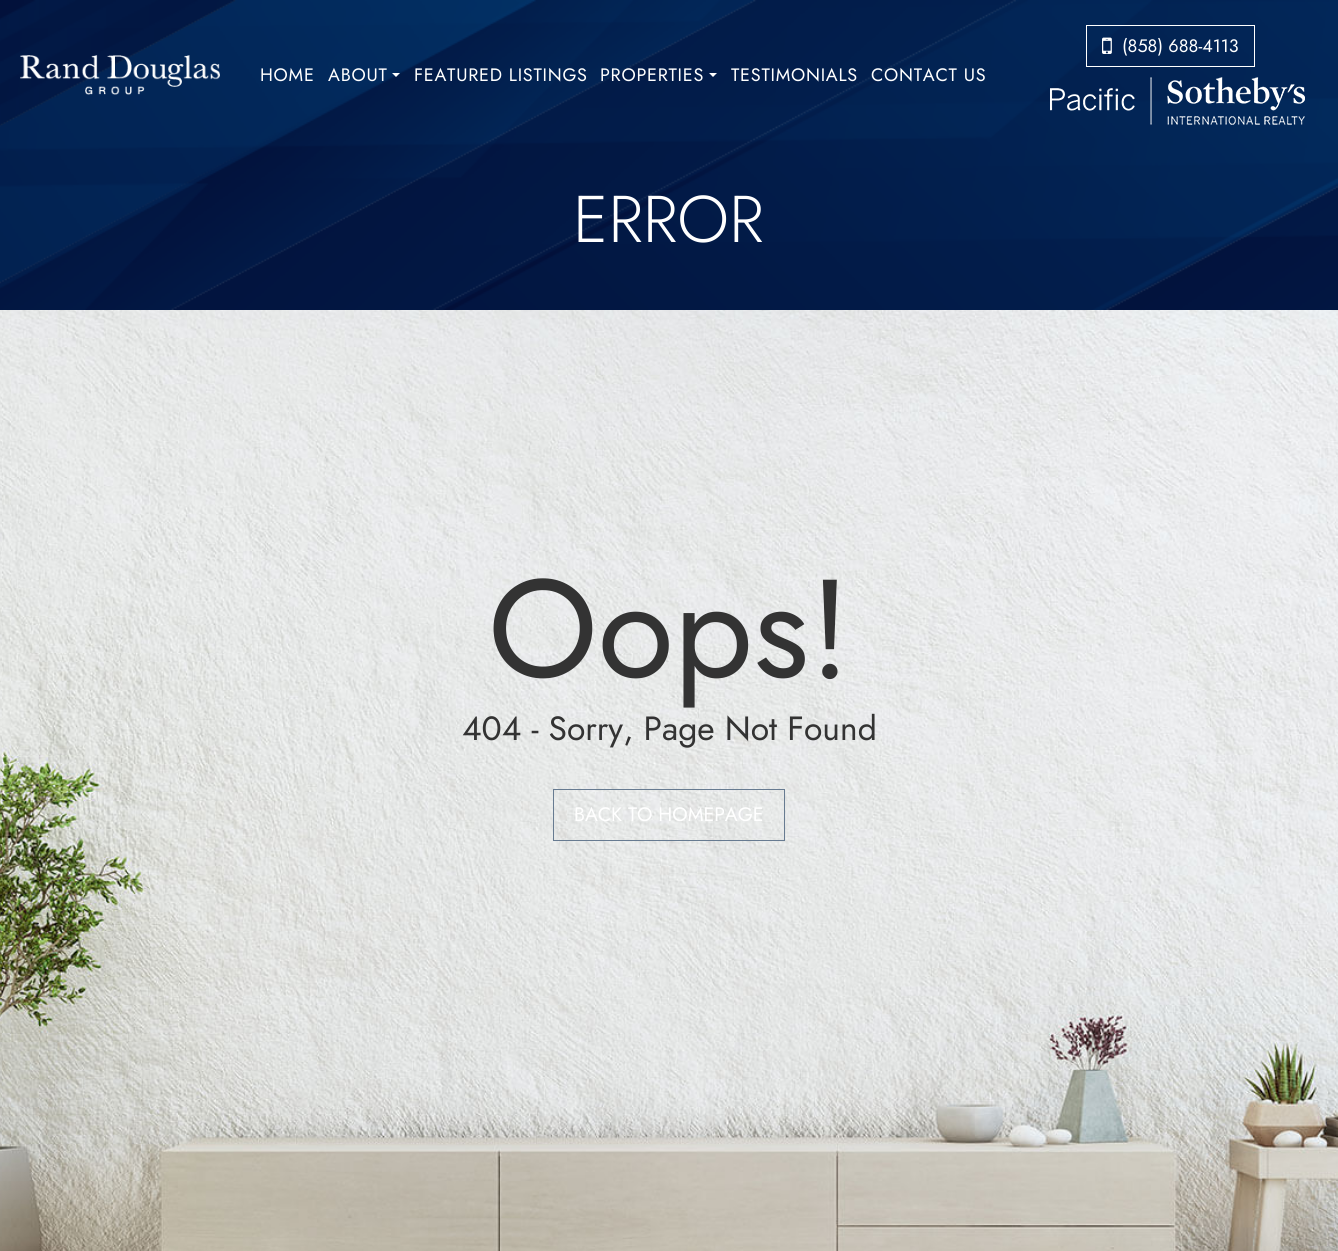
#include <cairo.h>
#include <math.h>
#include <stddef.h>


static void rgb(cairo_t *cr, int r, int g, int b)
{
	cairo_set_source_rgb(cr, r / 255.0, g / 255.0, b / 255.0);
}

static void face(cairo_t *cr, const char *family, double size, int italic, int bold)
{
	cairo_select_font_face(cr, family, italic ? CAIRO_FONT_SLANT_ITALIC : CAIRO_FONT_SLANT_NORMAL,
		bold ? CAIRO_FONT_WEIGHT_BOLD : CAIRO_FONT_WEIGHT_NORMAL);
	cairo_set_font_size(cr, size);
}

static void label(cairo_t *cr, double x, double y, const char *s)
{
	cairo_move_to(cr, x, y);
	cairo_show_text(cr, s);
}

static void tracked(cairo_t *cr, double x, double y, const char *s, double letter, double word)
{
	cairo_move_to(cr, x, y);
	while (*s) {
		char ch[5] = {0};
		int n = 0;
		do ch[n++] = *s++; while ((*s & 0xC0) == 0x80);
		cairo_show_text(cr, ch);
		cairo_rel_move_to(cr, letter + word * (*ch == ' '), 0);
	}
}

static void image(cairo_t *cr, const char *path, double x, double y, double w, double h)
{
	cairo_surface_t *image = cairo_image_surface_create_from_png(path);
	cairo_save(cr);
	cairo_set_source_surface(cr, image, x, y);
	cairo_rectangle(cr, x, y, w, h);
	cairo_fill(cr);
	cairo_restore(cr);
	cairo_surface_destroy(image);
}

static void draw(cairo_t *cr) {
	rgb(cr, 255, 255, 255);
	cairo_paint(cr);
	image(cr, "image3.png", 0, 0, 1338, 310);
	cairo_rectangle(cr, 1086.5, 25.5, 168, 41);
	rgb(cr, 255, 255, 255);
	cairo_set_line_width(cr, 1);
	cairo_stroke(cr);
	image(cr, "image0.png", 1102, 37, 10, 17);
	face(cr, "Jost", 18, 0, 0);
	label(cr, 1122, 52, "(858) 688-4113");
	image(cr, "image1.png", 1050, 77, 255, 48);
	image(cr, "image2.png", 20, 55, 200, 40);
	tracked(cr, 260, 81, "HOME", 0.75, 0);
	tracked(cr, 328, 81, "ABOUT", 0.75, 0);
	cairo_new_path(cr);
	cairo_move_to(cr, 392, 73);
	cairo_line_to(cr, 400, 73);
	cairo_line_to(cr, 396, 77);
	cairo_close_path(cr);
	cairo_fill(cr);
	tracked(cr, 414, 81, "FEATURED LISTINGS", 0.75, 0);
	tracked(cr, 600, 81, "PROPERTIES", 0.75, 0);
	cairo_new_path(cr);
	cairo_move_to(cr, 709, 73);
	cairo_line_to(cr, 717, 73);
	cairo_line_to(cr, 713, 77);
	cairo_close_path(cr);
	cairo_fill(cr);
	tracked(cr, 731, 81, "TESTIMONIALS", 0.75, 0);
	tracked(cr, 871, 81, "CONTACT US", 0.75, 0);
	face(cr, "Jost Light", 66, 0, 0);
	label(cr, 573, 242, "ERROR");
	image(cr, "image4.png", 0, 310, 1338, 941);
	face(cr, "Jost", 139, 0, 0);
	rgb(cr, 51, 51, 51);
	label(cr, 488, 677, "Oops!");
	face(cr, "Jost", 33.6, 0, 0);
	label(cr, 462, 740, "404 - Sorry, Page Not Found");
	cairo_rectangle(cr, 553.5, 789.5, 231, 51);
	rgb(cr, 103, 123, 145);
	cairo_stroke(cr);
	face(cr, "Jost", 19.5, 0, 0);
	rgb(cr, 255, 255, 255);
	label(cr, 574, 821, "BACK TO HOMEPAGE");
}

int main(void) {
	cairo_surface_t *surface = cairo_image_surface_create(CAIRO_FORMAT_RGB24, 1338, 1251);
	cairo_t *cr = cairo_create(surface);
	cairo_font_options_t *options = cairo_font_options_create();
	cairo_font_options_set_hint_metrics(options, CAIRO_HINT_METRICS_OFF);
	cairo_font_options_set_hint_style(options, CAIRO_HINT_STYLE_NONE);
	cairo_set_font_options(cr, options);
	cairo_set_miter_limit(cr, 4);
	draw(cr);
	cairo_surface_write_to_png(surface, "render.png");
	cairo_font_options_destroy(options);
	cairo_destroy(cr);
	cairo_surface_destroy(surface);
	return 0;
}
